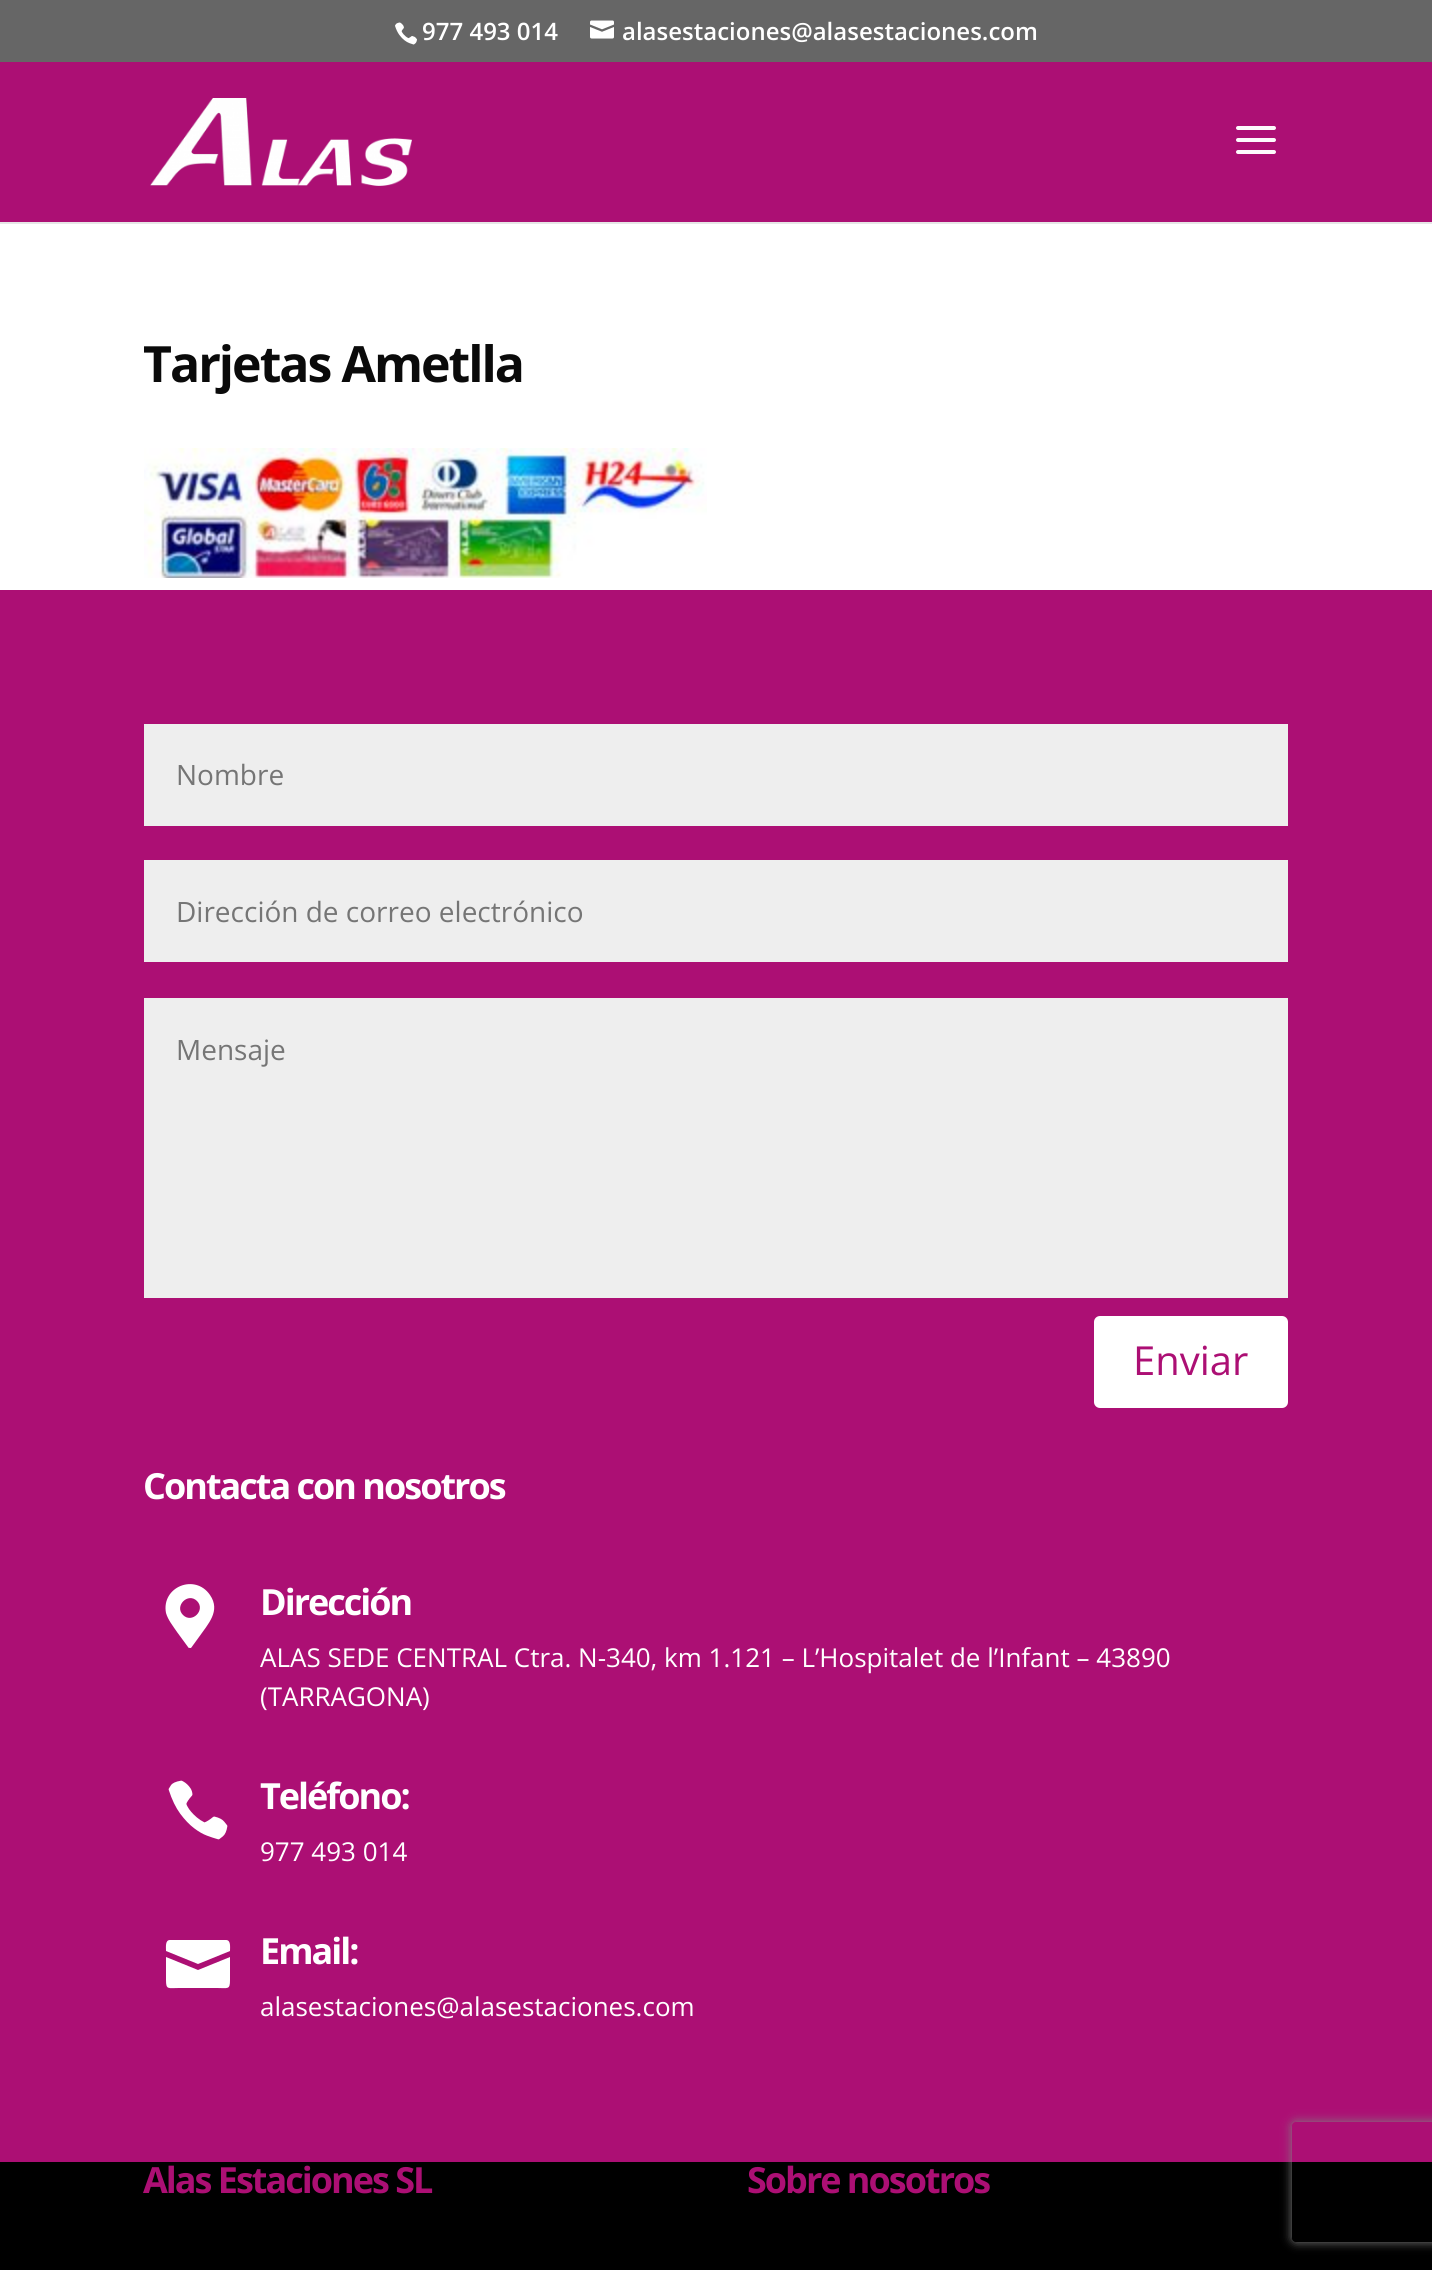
#include <cairo.h>
#include <math.h>
#include <stddef.h>


static void rgb(cairo_t *cr, int r, int g, int b)
{
	cairo_set_source_rgb(cr, r / 255.0, g / 255.0, b / 255.0);
}

static void face(cairo_t *cr, const char *family, double size, int italic, int bold)
{
	cairo_select_font_face(cr, family, italic ? CAIRO_FONT_SLANT_ITALIC : CAIRO_FONT_SLANT_NORMAL,
		bold ? CAIRO_FONT_WEIGHT_BOLD : CAIRO_FONT_WEIGHT_NORMAL);
	cairo_set_font_size(cr, size);
}

static void label(cairo_t *cr, double x, double y, const char *s)
{
	cairo_move_to(cr, x, y);
	cairo_show_text(cr, s);
}

static void tracked(cairo_t *cr, double x, double y, const char *s, double letter, double word)
{
	cairo_move_to(cr, x, y);
	while (*s) {
		char ch[5] = {0};
		int n = 0;
		do ch[n++] = *s++; while ((*s & 0xC0) == 0x80);
		cairo_show_text(cr, ch);
		cairo_rel_move_to(cr, letter + word * (*ch == ' '), 0);
	}
}

static void rect(cairo_t *cr, double x, double y, double w, double h)
{
	cairo_rectangle(cr, x, y, w, h);
	cairo_fill(cr);
}

static void rrect(cairo_t *cr, double x, double y, double w, double h, double r)
{
	cairo_new_sub_path(cr);
	cairo_arc(cr, x + w - r, y + h - r, r, 0, M_PI / 2);
	cairo_arc(cr, x + r, y + h - r, r, M_PI / 2, M_PI);
	cairo_arc(cr, x + r, y + r, r, M_PI, 1.5 * M_PI);
	cairo_arc(cr, x + w - r, y + r, r, 1.5 * M_PI, 2 * M_PI);
	cairo_close_path(cr);
}

static void soft_shadow(cairo_t *cr, double x, double y, double w, double h, double r, double blur, double alpha)
{
	cairo_push_group_with_content(cr, CAIRO_CONTENT_ALPHA);
	cairo_set_operator(cr, CAIRO_OPERATOR_SOURCE);
	for (int i = 15; i >= -15 && fmin(w, h) + blur * i / 3 > 0; i -= 2) {
		double e = blur * i / 6;
		cairo_set_source_rgba(cr, 0, 0, 0, alpha * erfc((i - 1) / 8.5) / 2);
		rrect(cr, x - e, y - e, w + 2 * e, h + 2 * e, fmax(0, fmin(r + e + blur * .6, fmin(w, h) / 2 + e)));
		cairo_fill(cr);
	}
	cairo_pattern_t *soft = cairo_pop_group(cr);
	cairo_mask(cr, soft);
	cairo_pattern_destroy(soft);
}

static void image(cairo_t *cr, const char *path, double x, double y, double w, double h)
{
	cairo_surface_t *image = cairo_image_surface_create_from_png(path);
	cairo_save(cr);
	cairo_set_source_surface(cr, image, x, y);
	cairo_rectangle(cr, x, y, w, h);
	cairo_fill(cr);
	cairo_restore(cr);
	cairo_surface_destroy(image);
}

static void draw(cairo_t *cr) {
	rgb(cr, 255, 255, 255);
	cairo_paint(cr);
	rgb(cr, 102, 102, 102);
	rect(cr, 0, 0, 1432, 62);
	image(cr, "image0.png", 395, 22, 22, 23);
	face(cr, "Open Sans SemiBold", 24, 0, 0);
	rgb(cr, 255, 255, 255);
	label(cr, 422, 40, "977 493 014");
	image(cr, "image1.png", 590, 20, 24, 19);
	label(cr, 622, 40, "alasestaciones@alasestaciones.com");
	rgb(cr, 230, 230, 230);
	rect(cr, 0, 222, 1432, 2);
	rgb(cr, 172, 15, 116);
	rect(cr, 0, 62, 1432, 160);
	image(cr, "image2.png", 150, 98, 262, 88);
	image(cr, "image3.png", 1236, 126, 40, 28);
	face(cr, "Open Sans", 50, 0, 1);
	rgb(cr, 10, 10, 10);
	tracked(cr, 143, 382, "Tarjetas Ametlla", -2, 0);
	image(cr, "image4.png", 144, 448, 563, 130);
	rgb(cr, 172, 15, 116);
	rect(cr, 0, 590, 1432, 1572);
	rgb(cr, 238, 238, 238);
	rect(cr, 144, 724, 1144, 102);
	face(cr, "Open Sans", 28, 0, 0);
	rgb(cr, 117, 117, 117);
	label(cr, 176, 785, "Nombre");
	rgb(cr, 238, 238, 238);
	rect(cr, 144, 860, 1144, 102);
	rgb(cr, 117, 117, 117);
	label(cr, 176, 922, "Dirección de correo electrónico");
	rgb(cr, 238, 238, 238);
	rect(cr, 144, 998, 1144, 300);
	rgb(cr, 117, 117, 117);
	label(cr, 176, 1060, "Mensaje");
	rgb(cr, 255, 255, 255);
	rrect(cr, 1094, 1316, 194, 92, 6);
	cairo_fill(cr);
	face(cr, "Open Sans", 40, 0, 0);
	rgb(cr, 172, 15, 116);
	label(cr, 1133, 1375, "Enviar");
	face(cr, "Open Sans", 36, 0, 1);
	rgb(cr, 255, 255, 255);
	tracked(cr, 143, 1499, "Contacta con nosotros", -2, 0);
	cairo_new_path(cr);
	cairo_move_to(cr, 188, 1647);
	cairo_line_to(cr, 177, 1632);
	cairo_curve_to(cr, 173, 1626, 168, 1620, 166, 1613);
	cairo_curve_to(cr, 161, 1587, 195, 1573, 210, 1595);
	cairo_curve_to(cr, 221, 1611, 208, 1624, 199, 1637);
	cairo_line_to(cr, 191, 1648);
	cairo_curve_to(cr, 190, 1648, 188, 1648, 188, 1647);
	cairo_close_path(cr);
	cairo_move_to(cr, 183, 1615);
	cairo_curve_to(cr, 192, 1624, 206, 1610, 197, 1601);
	cairo_curve_to(cr, 188, 1592, 174, 1606, 183, 1615);
	cairo_close_path(cr);
	cairo_fill(cr);
	tracked(cr, 260, 1615, "Dirección", -2, 0);
	face(cr, "Open Sans", 26, 0, 0);
	label(cr, 260, 1667, "ALAS SEDE CENTRAL Ctra. N-340, km 1.121 – L’Hospitalet de l’Infant – 43890");
	label(cr, 260, 1706, "(TARRAGONA)");
	image(cr, "image5.png", 168, 1780, 60, 60);
	face(cr, "Open Sans", 36, 0, 1);
	tracked(cr, 260, 1809, "Teléfono:", -2, 0);
	face(cr, "Open Sans", 26, 0, 0);
	label(cr, 260, 1861, "977 493 014");
	cairo_new_path(cr);
	cairo_move_to(cr, 226, 1940);
	cairo_line_to(cr, 170, 1940);
	cairo_curve_to(cr, 165, 1940, 166, 1947, 166, 1951);
	cairo_line_to(cr, 198, 1964);
	cairo_line_to(cr, 230, 1951);
	cairo_curve_to(cr, 230, 1947, 231, 1940, 226, 1940);
	cairo_close_path(cr);
	cairo_move_to(cr, 166, 1957);
	cairo_line_to(cr, 166, 1980);
	cairo_curve_to(cr, 166, 1990, 168, 1988, 179, 1988);
	cairo_line_to(cr, 217, 1988);
	cairo_curve_to(cr, 228, 1988, 230, 1990, 230, 1980);
	cairo_line_to(cr, 230, 1957);
	cairo_line_to(cr, 198, 1970);
	cairo_close_path(cr);
	cairo_fill(cr);
	face(cr, "Open Sans", 36, 0, 1);
	tracked(cr, 260, 1964, "Email:", -2, 0);
	face(cr, "Open Sans", 26, 0, 0);
	label(cr, 260, 2016, "alasestaciones@alasestaciones.com");
	rgb(cr, 0, 0, 0);
	rect(cr, 0, 2162, 1432, 108);
	face(cr, "Open Sans", 36, 0, 1);
	rgb(cr, 172, 15, 116);
	tracked(cr, 143, 2193, "Alas Estaciones SL", -2, 0);
	tracked(cr, 747, 2193, "Sobre nosotros", -2, 0);
	cairo_save(cr);
	cairo_set_fill_rule(cr, CAIRO_FILL_RULE_EVEN_ODD);
	cairo_new_path(cr);
	cairo_move_to(cr, 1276, 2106);
	cairo_line_to(cr, 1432, 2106);
	cairo_line_to(cr, 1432, 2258);
	cairo_line_to(cr, 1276, 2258);
	cairo_close_path(cr);
	cairo_move_to(cr, 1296, 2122);
	cairo_line_to(cr, 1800, 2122);
	cairo_curve_to(cr, 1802, 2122, 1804, 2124, 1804, 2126);
	cairo_line_to(cr, 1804, 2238);
	cairo_curve_to(cr, 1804, 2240, 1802, 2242, 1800, 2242);
	cairo_line_to(cr, 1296, 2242);
	cairo_curve_to(cr, 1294, 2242, 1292, 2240, 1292, 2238);
	cairo_line_to(cr, 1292, 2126);
	cairo_curve_to(cr, 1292, 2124, 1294, 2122, 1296, 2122);
	cairo_close_path(cr);
	cairo_clip(cr);
	rgb(cr, 128, 128, 128);
	soft_shadow(cr, 1292, 2122, 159, 120, 4, 5, 1);
	cairo_restore(cr);
}

int main(void) {
	cairo_surface_t *surface = cairo_image_surface_create(CAIRO_FORMAT_RGB24, 1432, 2270);
	cairo_t *cr = cairo_create(surface);
	cairo_font_options_t *options = cairo_font_options_create();
	cairo_font_options_set_hint_metrics(options, CAIRO_HINT_METRICS_OFF);
	cairo_font_options_set_hint_style(options, CAIRO_HINT_STYLE_NONE);
	cairo_set_font_options(cr, options);
	cairo_set_miter_limit(cr, 4);
	draw(cr);
	cairo_surface_write_to_png(surface, "render.png");
	cairo_font_options_destroy(options);
	cairo_destroy(cr);
	cairo_surface_destroy(surface);
	return 0;
}
